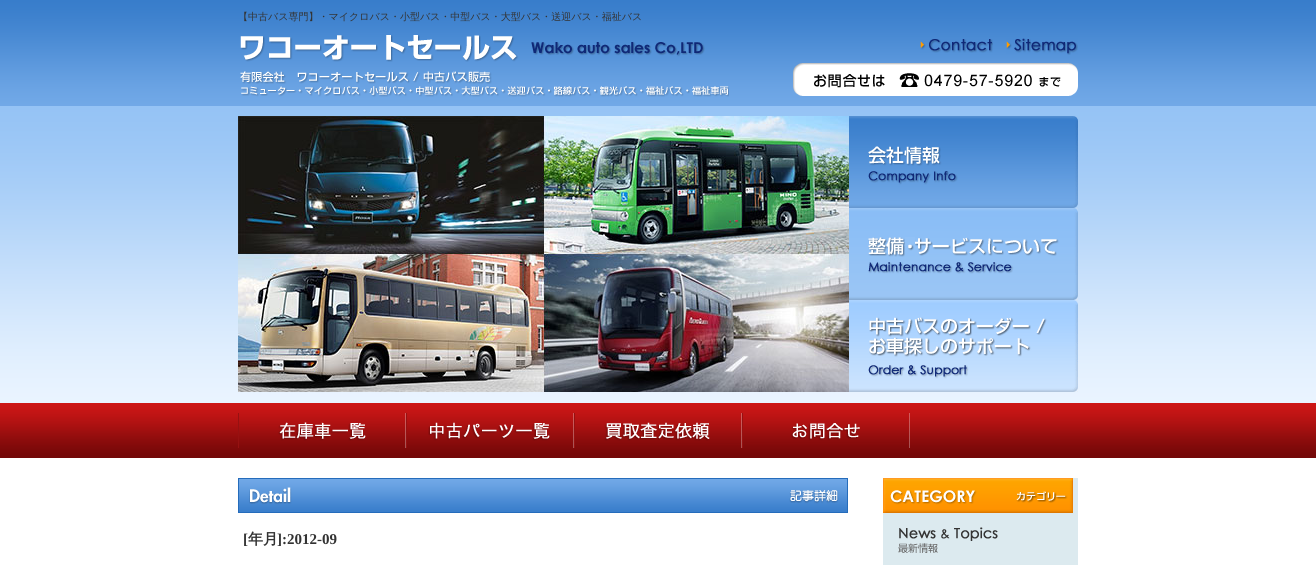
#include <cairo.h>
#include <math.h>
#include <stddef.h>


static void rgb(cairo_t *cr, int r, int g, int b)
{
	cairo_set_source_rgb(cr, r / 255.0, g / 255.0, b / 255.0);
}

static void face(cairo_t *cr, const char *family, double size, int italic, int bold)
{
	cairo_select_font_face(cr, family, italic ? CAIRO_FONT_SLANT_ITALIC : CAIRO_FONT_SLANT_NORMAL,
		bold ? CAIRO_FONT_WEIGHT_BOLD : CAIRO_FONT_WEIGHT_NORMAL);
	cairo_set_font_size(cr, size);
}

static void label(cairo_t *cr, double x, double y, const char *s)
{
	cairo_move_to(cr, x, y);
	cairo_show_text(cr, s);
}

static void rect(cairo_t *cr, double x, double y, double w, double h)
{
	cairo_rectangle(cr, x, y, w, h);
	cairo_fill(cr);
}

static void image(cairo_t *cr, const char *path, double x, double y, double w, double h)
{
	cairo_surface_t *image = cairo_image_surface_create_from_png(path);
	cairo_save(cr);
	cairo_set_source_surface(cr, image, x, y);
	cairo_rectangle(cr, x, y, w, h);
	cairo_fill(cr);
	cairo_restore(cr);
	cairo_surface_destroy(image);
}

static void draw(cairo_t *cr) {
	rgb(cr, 255, 255, 255);
	cairo_paint(cr);
	image(cr, "image0.png", 0, 0, 1316, 106);
	face(cr, "WenQuanYi Zen Hei Medium", 10, 0, 0);
	rgb(cr, 51, 51, 51);
	label(cr, 238, 20, "【中古バス専門】・マイクロバス・小型バス・中型バス・大型バス・送迎バス・福祉バス");
	image(cr, "image1.png", 240, 35, 465, 27);
	image(cr, "image2.png", 240, 71, 489, 26);
	image(cr, "image3.png", 920, 39, 73, 14);
	image(cr, "image4.png", 1006, 38, 72, 17);
	image(cr, "image5.png", 793, 63, 285, 33);
	image(cr, "image6.png", 0, 106, 1316, 297);
	image(cr, "image7.png", 238, 116, 611, 276);
	image(cr, "image8.png", 849, 116, 229, 92);
	image(cr, "image9.png", 849, 208, 229, 92);
	image(cr, "image10.png", 849, 300, 229, 92);
	image(cr, "image11.png", 0, 403, 1316, 55);
	image(cr, "image12.png", 238, 413, 168, 35);
	image(cr, "image13.png", 406, 413, 168, 35);
	image(cr, "image14.png", 574, 413, 168, 35);
	image(cr, "image15.png", 742, 413, 168, 35);
	image(cr, "image16.png", 238, 478, 610, 35);
	face(cr, "Liberation Serif", 15, 0, 1);
	label(cr, 243, 544, "[");
	face(cr, "WenQuanYi Zen Hei", 15, 0, 1);
	label(cr, 248, 544, "年月");
	face(cr, "Liberation Serif", 15, 0, 1);
	label(cr, 277, 544, "]:2012-09");
	rgb(cr, 220, 234, 239);
	rect(cr, 883, 478, 195, 87);
	image(cr, "image17.png", 883, 478, 190, 35);
	image(cr, "image18.png", 898, 527, 100, 26);
}

int main(void) {
	cairo_surface_t *surface = cairo_image_surface_create(CAIRO_FORMAT_RGB24, 1316, 565);
	cairo_t *cr = cairo_create(surface);
	cairo_font_options_t *options = cairo_font_options_create();
	cairo_font_options_set_hint_metrics(options, CAIRO_HINT_METRICS_OFF);
	cairo_font_options_set_hint_style(options, CAIRO_HINT_STYLE_NONE);
	cairo_set_font_options(cr, options);
	cairo_set_miter_limit(cr, 4);
	draw(cr);
	cairo_surface_write_to_png(surface, "render.png");
	cairo_font_options_destroy(options);
	cairo_destroy(cr);
	cairo_surface_destroy(surface);
	return 0;
}
